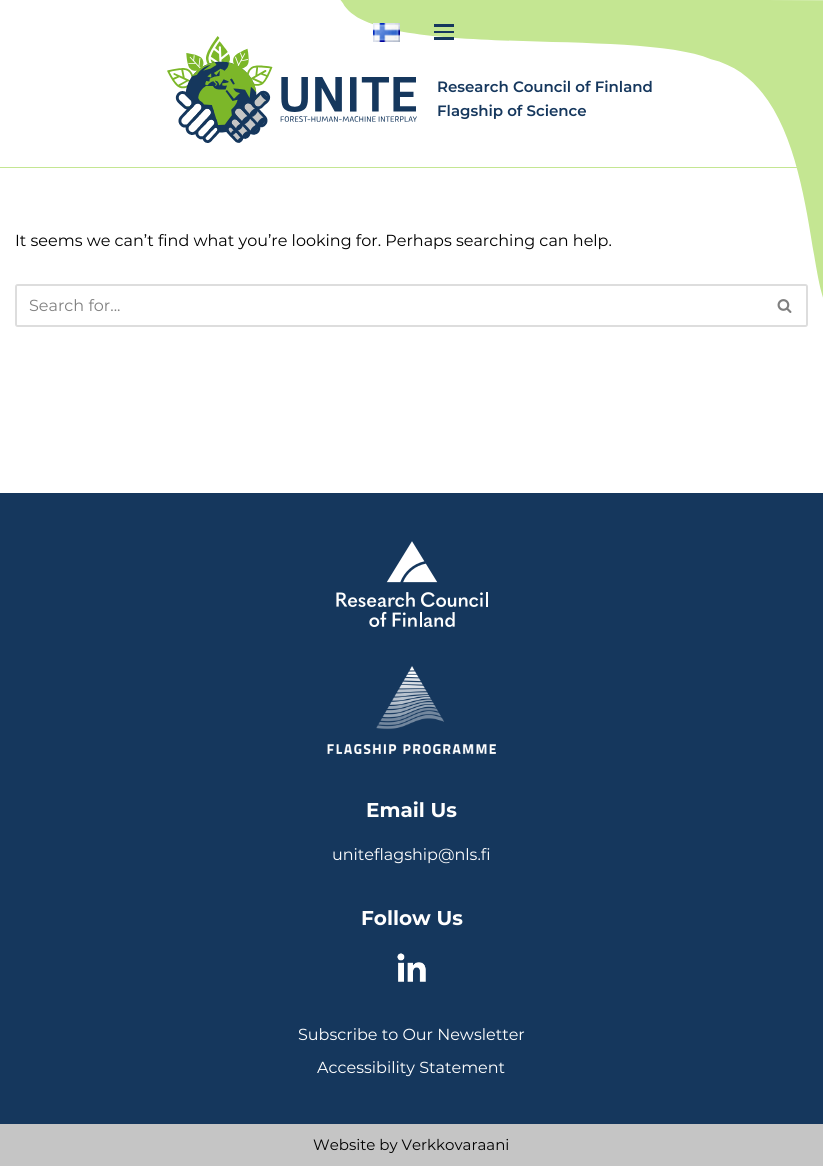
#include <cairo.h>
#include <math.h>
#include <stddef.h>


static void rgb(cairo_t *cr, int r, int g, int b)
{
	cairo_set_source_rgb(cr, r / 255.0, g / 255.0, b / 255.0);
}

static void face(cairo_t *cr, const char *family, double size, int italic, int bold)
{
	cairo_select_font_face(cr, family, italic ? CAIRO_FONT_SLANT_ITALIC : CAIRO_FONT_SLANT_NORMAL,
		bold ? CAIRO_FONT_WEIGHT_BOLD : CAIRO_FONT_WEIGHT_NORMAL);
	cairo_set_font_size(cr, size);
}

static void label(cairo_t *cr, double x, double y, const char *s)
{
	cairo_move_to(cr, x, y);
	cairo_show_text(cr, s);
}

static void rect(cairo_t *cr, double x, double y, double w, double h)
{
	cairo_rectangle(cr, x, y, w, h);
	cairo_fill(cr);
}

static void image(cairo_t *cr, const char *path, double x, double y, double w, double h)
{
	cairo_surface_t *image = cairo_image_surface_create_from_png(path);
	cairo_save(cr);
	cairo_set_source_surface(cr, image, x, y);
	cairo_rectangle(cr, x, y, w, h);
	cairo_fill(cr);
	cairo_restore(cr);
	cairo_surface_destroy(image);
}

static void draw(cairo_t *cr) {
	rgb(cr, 255, 255, 255);
	cairo_paint(cr);
	rgb(cr, 196, 230, 146);
	rect(cr, 0, 167, 797, 1);
	image(cr, "image2.png", 167, 36, 250, 107);
	face(cr, "Montserrat SemiBold", 15, 0, 0);
	rgb(cr, 21, 55, 93);
	label(cr, 437, 92, "Research Council of Finland");
	label(cr, 437, 116, "Flagship of Science");
	face(cr, "Montserrat", 16, 0, 0);
	rgb(cr, 0, 0, 0);
	label(cr, 15, 246, "It seems we can’t find what you’re looking for. Perhaps searching can help.");
	rgb(cr, 221, 221, 221);
	cairo_set_fill_rule(cr, CAIRO_FILL_RULE_EVEN_ODD);
	cairo_new_path(cr);
	cairo_move_to(cr, 18, 284);
	cairo_line_to(cr, 763, 284);
	cairo_line_to(cr, 763, 327);
	cairo_line_to(cr, 18, 327);
	cairo_curve_to(cr, 16, 327, 15, 326, 15, 324);
	cairo_line_to(cr, 15, 287);
	cairo_curve_to(cr, 15, 285, 16, 284, 18, 284);
	cairo_close_path(cr);
	cairo_move_to(cr, 18, 286);
	cairo_line_to(cr, 763, 286);
	cairo_line_to(cr, 763, 325);
	cairo_line_to(cr, 18, 325);
	cairo_curve_to(cr, 17, 325, 17, 325, 17, 324);
	cairo_line_to(cr, 17, 287);
	cairo_curve_to(cr, 17, 286, 17, 286, 18, 286);
	cairo_close_path(cr);
	cairo_fill(cr);
	cairo_new_path(cr);
	cairo_move_to(cr, 763, 284);
	cairo_line_to(cr, 805, 284);
	cairo_curve_to(cr, 807, 284, 808, 285, 808, 287);
	cairo_line_to(cr, 808, 324);
	cairo_curve_to(cr, 808, 326, 807, 327, 805, 327);
	cairo_line_to(cr, 763, 327);
	cairo_close_path(cr);
	cairo_move_to(cr, 763, 286);
	cairo_line_to(cr, 805, 286);
	cairo_curve_to(cr, 806, 286, 806, 286, 806, 287);
	cairo_line_to(cr, 806, 324);
	cairo_curve_to(cr, 806, 325, 806, 325, 805, 325);
	cairo_line_to(cr, 763, 325);
	cairo_close_path(cr);
	cairo_fill(cr);
	image(cr, "image0.png", 340, 0, 483, 298);
	image(cr, "image1.png", 373, 23, 27, 19);
	rgb(cr, 21, 55, 93);
	rect(cr, 434, 24, 20, 3);
	rect(cr, 434, 31, 20, 2);
	rect(cr, 434, 37, 20, 3);
	rgb(cr, 128, 128, 128);
	label(cr, 29, 311, "Search for...");
	image(cr, "image3.png", 777, 299, 15, 14);
	rgb(cr, 21, 55, 93);
	rect(cr, 0, 493, 823, 631);
	image(cr, "image4.png", 336, 541, 152, 86);
	image(cr, "image5.png", 327, 666, 169, 89);
	face(cr, "Montserrat", 20, 0, 1);
	rgb(cr, 255, 255, 255);
	label(cr, 366, 817, "Email Us");
	face(cr, "Montserrat", 16, 0, 0);
	label(cr, 332, 860, "uniteflagship@nls.fi");
	face(cr, "Montserrat", 20, 0, 1);
	label(cr, 361, 925, "Follow Us");
	image(cr, "image6.png", 397, 953, 29, 29);
	face(cr, "Montserrat", 16, 0, 0);
	label(cr, 298, 1040, "Subscribe to Our Newsletter");
	label(cr, 317, 1073, "Accessibility Statement");
	rgb(cr, 197, 197, 197);
	rect(cr, 0, 1124, 823, 42);
	face(cr, "Montserrat", 15, 0, 0);
	rgb(cr, 0, 0, 0);
	label(cr, 313, 1150, "Website by Verkkovaraani");
}

int main(void) {
	cairo_surface_t *surface = cairo_image_surface_create(CAIRO_FORMAT_RGB24, 823, 1166);
	cairo_t *cr = cairo_create(surface);
	cairo_font_options_t *options = cairo_font_options_create();
	cairo_font_options_set_hint_metrics(options, CAIRO_HINT_METRICS_OFF);
	cairo_font_options_set_hint_style(options, CAIRO_HINT_STYLE_NONE);
	cairo_set_font_options(cr, options);
	cairo_set_miter_limit(cr, 4);
	draw(cr);
	cairo_surface_write_to_png(surface, "render.png");
	cairo_font_options_destroy(options);
	cairo_destroy(cr);
	cairo_surface_destroy(surface);
	return 0;
}
